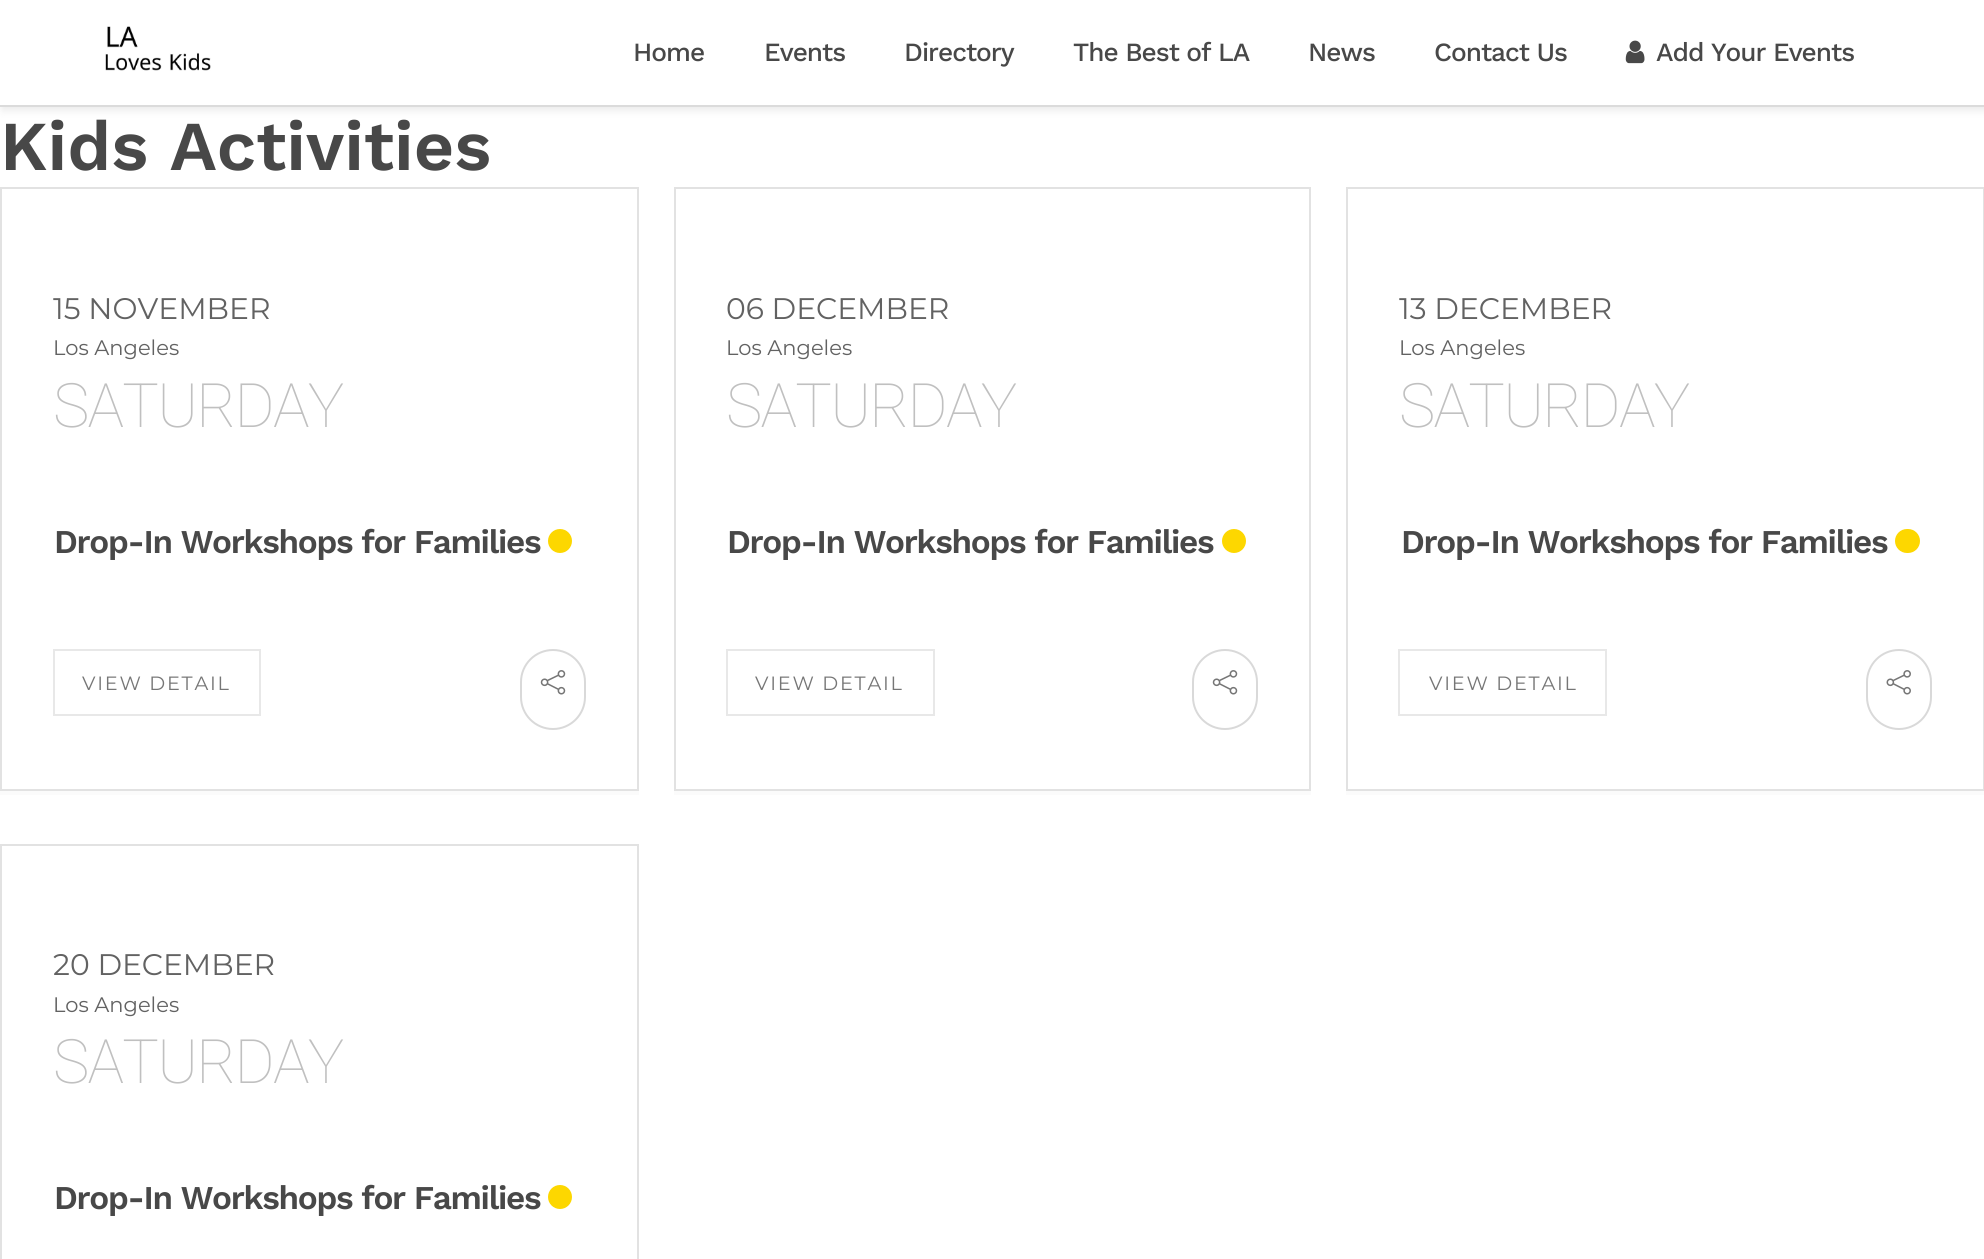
#include <cairo.h>
#include <math.h>
#include <stddef.h>


static void rgb(cairo_t *cr, int r, int g, int b)
{
	cairo_set_source_rgb(cr, r / 255.0, g / 255.0, b / 255.0);
}

static void face(cairo_t *cr, const char *family, double size, int italic, int bold)
{
	cairo_select_font_face(cr, family, italic ? CAIRO_FONT_SLANT_ITALIC : CAIRO_FONT_SLANT_NORMAL,
		bold ? CAIRO_FONT_WEIGHT_BOLD : CAIRO_FONT_WEIGHT_NORMAL);
	cairo_set_font_size(cr, size);
}

static void label(cairo_t *cr, double x, double y, const char *s)
{
	cairo_move_to(cr, x, y);
	cairo_show_text(cr, s);
}

static void tracked(cairo_t *cr, double x, double y, const char *s, double letter, double word)
{
	cairo_move_to(cr, x, y);
	while (*s) {
		char ch[5] = {0};
		int n = 0;
		do ch[n++] = *s++; while ((*s & 0xC0) == 0x80);
		cairo_show_text(cr, ch);
		cairo_rel_move_to(cr, letter + word * (*ch == ' '), 0);
	}
}

static void rect(cairo_t *cr, double x, double y, double w, double h)
{
	cairo_rectangle(cr, x, y, w, h);
	cairo_fill(cr);
}

static void rrect(cairo_t *cr, double x, double y, double w, double h, double r)
{
	cairo_new_sub_path(cr);
	cairo_arc(cr, x + w - r, y + h - r, r, 0, M_PI / 2);
	cairo_arc(cr, x + r, y + h - r, r, M_PI / 2, M_PI);
	cairo_arc(cr, x + r, y + r, r, M_PI, 1.5 * M_PI);
	cairo_arc(cr, x + w - r, y + r, r, 1.5 * M_PI, 2 * M_PI);
	cairo_close_path(cr);
}

static void soft_shadow(cairo_t *cr, double x, double y, double w, double h, double r, double blur, double alpha)
{
	cairo_push_group_with_content(cr, CAIRO_CONTENT_ALPHA);
	cairo_set_operator(cr, CAIRO_OPERATOR_SOURCE);
	for (int i = 15; i >= -15 && fmin(w, h) + blur * i / 3 > 0; i -= 2) {
		double e = blur * i / 6;
		cairo_set_source_rgba(cr, 0, 0, 0, alpha * erfc((i - 1) / 8.5) / 2);
		rrect(cr, x - e, y - e, w + 2 * e, h + 2 * e, fmax(0, fmin(r + e + blur * .6, fmin(w, h) / 2 + e)));
		cairo_fill(cr);
	}
	cairo_pattern_t *soft = cairo_pop_group(cr);
	cairo_mask(cr, soft);
	cairo_pattern_destroy(soft);
}

static void image(cairo_t *cr, const char *path, double x, double y, double w, double h)
{
	cairo_surface_t *image = cairo_image_surface_create_from_png(path);
	cairo_save(cr);
	cairo_set_source_surface(cr, image, x, y);
	cairo_rectangle(cr, x, y, w, h);
	cairo_fill(cr);
	cairo_restore(cr);
	cairo_surface_destroy(image);
}

static void draw(cairo_t *cr) {
	rgb(cr, 255, 255, 255);
	cairo_paint(cr);
	rgb(cr, 0, 0, 0);
	soft_shadow(cr, 2, 4, 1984, 106, 0, 4.5, 0.09);
	rgb(cr, 255, 255, 255);
	rect(cr, 0, 0, 1984, 105);
	rgb(cr, 219, 219, 219);
	rect(cr, 0, 105, 1984, 2);
	image(cr, "image0.png", 105, 26, 106, 45);
	face(cr, "Work Sans Medium", 26.25, 0, 0);
	rgb(cr, 72, 72, 72);
	tracked(cr, 633, 61, "Home", -1, 0);
	tracked(cr, 764, 61, "Events", -1, 0);
	tracked(cr, 904, 61, "Directory", -1, 0);
	tracked(cr, 1073, 61, "The Best of LA", -1, 0);
	tracked(cr, 1308, 61, "News", -1, 0);
	tracked(cr, 1434, 61, "Contact Us", -1, 0);
	image(cr, "image1.png", 1625, 40, 20, 24);
	tracked(cr, 1656, 61, "Add Your Events", -1, 0);
	face(cr, "Work Sans SemiBold", 70, 0, 0);
	label(cr, 0, 170, "Kids Activities");
	rgb(cr, 251, 251, 251);
	cairo_new_path(cr);
	cairo_move_to(cr, 0, 791);
	cairo_line_to(cr, 0, 795);
	cairo_line_to(cr, 639, 795);
	cairo_line_to(cr, 639, 191);
	cairo_line_to(cr, 639, 791);
	cairo_close_path(cr);
	cairo_fill(cr);
	cairo_rectangle(cr, 1, 188, 637, 602);
	rgb(cr, 226, 226, 226);
	cairo_stroke(cr);
	face(cr, "Montserrat", 29.75, 0, 0);
	rgb(cr, 98, 98, 98);
	label(cr, 53, 319, "15 NOVEMBER");
	face(cr, "Montserrat", 21, 0, 0);
	label(cr, 53, 355, "Los Angeles");
	face(cr, "Roboto Thin", 61.25, 0, 0);
	rgb(cr, 192, 192, 192);
	tracked(cr, 53, 427, "SATURDAY", -1.75, 0);
	face(cr, "Work Sans SemiBold", 33.25, 0, 0);
	rgb(cr, 72, 72, 72);
	tracked(cr, 54, 553, "Drop-In Workshops for Families", -1.3, 0);
	rgb(cr, 253, 215, 0);
	cairo_new_path(cr);
	cairo_arc(cr, 560, 541, 12, 0, 2 * M_PI);
	cairo_fill(cr);
	cairo_rectangle(cr, 54, 650, 206, 65);
	rgb(cr, 232, 232, 232);
	cairo_stroke(cr);
	face(cr, "Montserrat", 19.25, 0, 0);
	rgb(cr, 118, 118, 118);
	tracked(cr, 82, 690, "VIEW DETAIL", 1.75, 0);
	rrect(cr, 521, 650, 64, 79, 32);
	rgb(cr, 217, 217, 217);
	cairo_stroke(cr);
	image(cr, "image2.png", 540, 670, 26, 25);
	rgb(cr, 251, 251, 251);
	cairo_new_path(cr);
	cairo_move_to(cr, 674, 791);
	cairo_line_to(cr, 674, 795);
	cairo_line_to(cr, 1311, 795);
	cairo_line_to(cr, 1311, 191);
	cairo_line_to(cr, 1311, 791);
	cairo_close_path(cr);
	cairo_fill(cr);
	cairo_rectangle(cr, 675, 188, 635, 602);
	rgb(cr, 226, 226, 226);
	cairo_stroke(cr);
	face(cr, "Montserrat", 29.75, 0, 0);
	rgb(cr, 98, 98, 98);
	label(cr, 726, 319, "06 DECEMBER");
	face(cr, "Montserrat", 21, 0, 0);
	label(cr, 726, 355, "Los Angeles");
	face(cr, "Roboto Thin", 61.25, 0, 0);
	rgb(cr, 192, 192, 192);
	tracked(cr, 726, 427, "SATURDAY", -1.75, 0);
	face(cr, "Work Sans SemiBold", 33.25, 0, 0);
	rgb(cr, 72, 72, 72);
	tracked(cr, 727, 553, "Drop-In Workshops for Families", -1.3, 0);
	rgb(cr, 253, 215, 0);
	cairo_new_path(cr);
	cairo_arc(cr, 1234, 541, 12, 0, 2 * M_PI);
	cairo_fill(cr);
	cairo_rectangle(cr, 727, 650, 207, 65);
	rgb(cr, 232, 232, 232);
	cairo_stroke(cr);
	face(cr, "Montserrat", 19.25, 0, 0);
	rgb(cr, 118, 118, 118);
	tracked(cr, 755, 690, "VIEW DETAIL", 1.75, 0);
	rrect(cr, 1193, 650, 64, 79, 32);
	rgb(cr, 217, 217, 217);
	cairo_stroke(cr);
	image(cr, "image2.png", 1212, 670, 26, 25);
	rgb(cr, 251, 251, 251);
	cairo_new_path(cr);
	cairo_move_to(cr, 1346, 791);
	cairo_line_to(cr, 1346, 795);
	cairo_line_to(cr, 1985, 795);
	cairo_line_to(cr, 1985, 191);
	cairo_line_to(cr, 1984, 191);
	cairo_line_to(cr, 1984, 791);
	cairo_close_path(cr);
	cairo_fill(cr);
	cairo_rectangle(cr, 1347, 188, 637, 602);
	rgb(cr, 226, 226, 226);
	cairo_stroke(cr);
	face(cr, "Montserrat", 29.75, 0, 0);
	rgb(cr, 98, 98, 98);
	label(cr, 1399, 319, "13 DECEMBER");
	face(cr, "Montserrat", 21, 0, 0);
	label(cr, 1399, 355, "Los Angeles");
	face(cr, "Roboto Thin", 61.25, 0, 0);
	rgb(cr, 192, 192, 192);
	tracked(cr, 1399, 427, "SATURDAY", -1.75, 0);
	face(cr, "Work Sans SemiBold", 33.25, 0, 0);
	rgb(cr, 72, 72, 72);
	tracked(cr, 1401, 553, "Drop-In Workshops for Families", -1.3, 0);
	rgb(cr, 253, 215, 0);
	rrect(cr, 1895, 529, 25, 24, 12);
	cairo_fill(cr);
	cairo_rectangle(cr, 1399, 650, 207, 65);
	rgb(cr, 232, 232, 232);
	cairo_stroke(cr);
	face(cr, "Montserrat", 19.25, 0, 0);
	rgb(cr, 118, 118, 118);
	tracked(cr, 1429, 690, "VIEW DETAIL", 1.75, 0);
	rrect(cr, 1867, 650, 64, 79, 32);
	rgb(cr, 217, 217, 217);
	cairo_stroke(cr);
	image(cr, "image3.png", 1886, 670, 25, 25);
	cairo_rectangle(cr, 1, 845, 637, 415);
	rgb(cr, 226, 226, 226);
	cairo_stroke(cr);
	face(cr, "Montserrat", 29.75, 0, 0);
	rgb(cr, 98, 98, 98);
	label(cr, 53, 975, "20 DECEMBER");
	face(cr, "Montserrat", 21, 0, 0);
	label(cr, 53, 1012, "Los Angeles");
	face(cr, "Roboto Thin", 61.25, 0, 0);
	rgb(cr, 192, 192, 192);
	tracked(cr, 53, 1083, "SATURDAY", -1.75, 0);
	face(cr, "Work Sans SemiBold", 33.25, 0, 0);
	rgb(cr, 72, 72, 72);
	tracked(cr, 54, 1209, "Drop-In Workshops for Families", -1.3, 0);
	rgb(cr, 253, 215, 0);
	cairo_new_path(cr);
	cairo_arc(cr, 560, 1197, 12, 0, 2 * M_PI);
	cairo_fill(cr);
}

int main(void) {
	cairo_surface_t *surface = cairo_image_surface_create(CAIRO_FORMAT_RGB24, 1984, 1259);
	cairo_t *cr = cairo_create(surface);
	cairo_font_options_t *options = cairo_font_options_create();
	cairo_font_options_set_hint_metrics(options, CAIRO_HINT_METRICS_OFF);
	cairo_font_options_set_hint_style(options, CAIRO_HINT_STYLE_NONE);
	cairo_set_font_options(cr, options);
	cairo_set_miter_limit(cr, 4);
	draw(cr);
	cairo_surface_write_to_png(surface, "render.png");
	cairo_font_options_destroy(options);
	cairo_destroy(cr);
	cairo_surface_destroy(surface);
	return 0;
}
